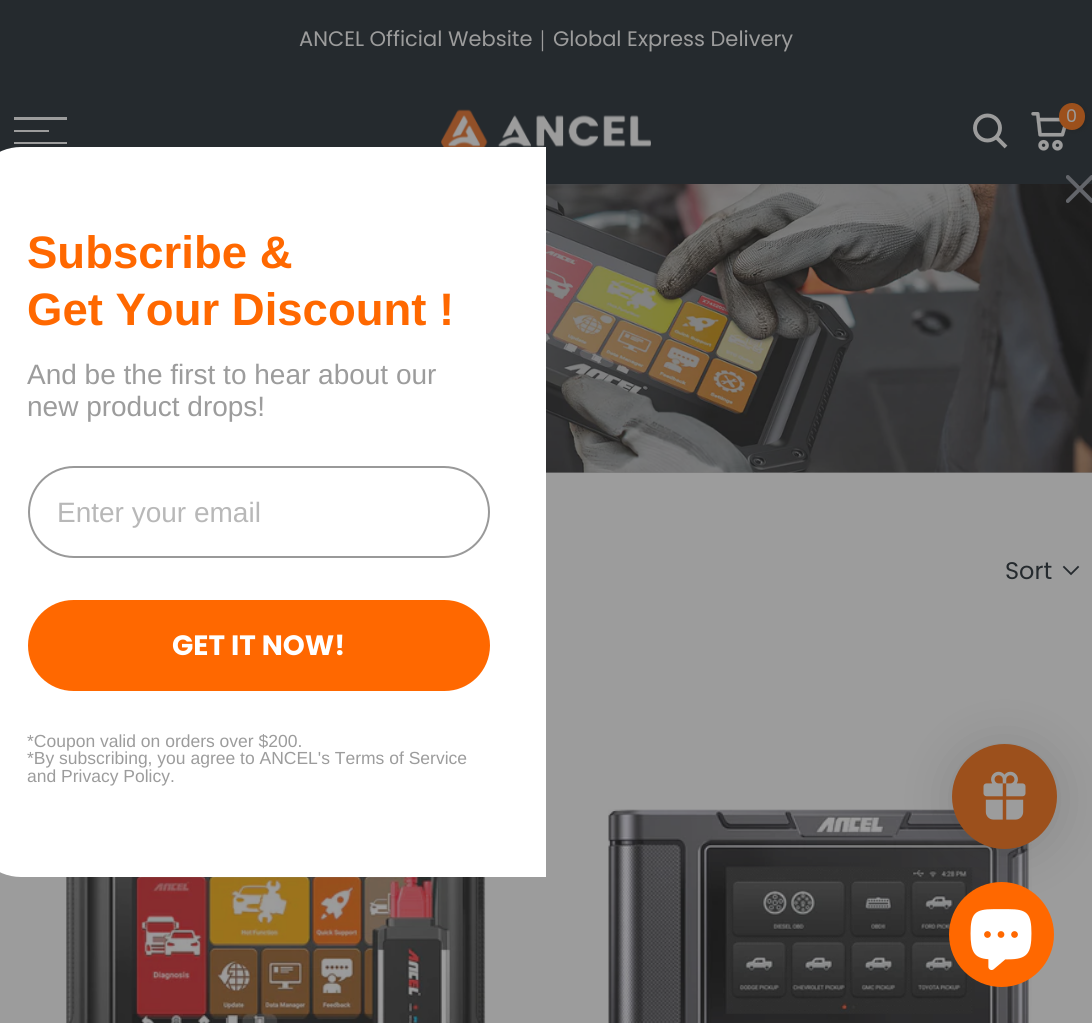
#include <cairo.h>
#include <math.h>
#include <stddef.h>


static void rgb(cairo_t *cr, int r, int g, int b)
{
	cairo_set_source_rgb(cr, r / 255.0, g / 255.0, b / 255.0);
}

static void face(cairo_t *cr, const char *family, double size, int italic, int bold)
{
	cairo_select_font_face(cr, family, italic ? CAIRO_FONT_SLANT_ITALIC : CAIRO_FONT_SLANT_NORMAL,
		bold ? CAIRO_FONT_WEIGHT_BOLD : CAIRO_FONT_WEIGHT_NORMAL);
	cairo_set_font_size(cr, size);
}

static void label(cairo_t *cr, double x, double y, const char *s)
{
	cairo_move_to(cr, x, y);
	cairo_show_text(cr, s);
}

static void rect(cairo_t *cr, double x, double y, double w, double h)
{
	cairo_rectangle(cr, x, y, w, h);
	cairo_fill(cr);
}

static void rrect(cairo_t *cr, double x, double y, double w, double h, double r)
{
	cairo_new_sub_path(cr);
	cairo_arc(cr, x + w - r, y + h - r, r, 0, M_PI / 2);
	cairo_arc(cr, x + r, y + h - r, r, M_PI / 2, M_PI);
	cairo_arc(cr, x + r, y + r, r, M_PI, 1.5 * M_PI);
	cairo_arc(cr, x + w - r, y + r, r, 1.5 * M_PI, 2 * M_PI);
	cairo_close_path(cr);
}

static void soft_shadow(cairo_t *cr, double x, double y, double w, double h, double r, double blur, double alpha)
{
	cairo_push_group_with_content(cr, CAIRO_CONTENT_ALPHA);
	cairo_set_operator(cr, CAIRO_OPERATOR_SOURCE);
	for (int i = 15; i >= -15 && fmin(w, h) + blur * i / 3 > 0; i -= 2) {
		double e = blur * i / 6;
		cairo_set_source_rgba(cr, 0, 0, 0, alpha * erfc((i - 1) / 8.5) / 2);
		rrect(cr, x - e, y - e, w + 2 * e, h + 2 * e, fmax(0, fmin(r + e + blur * .6, fmin(w, h) / 2 + e)));
		cairo_fill(cr);
	}
	cairo_pattern_t *soft = cairo_pop_group(cr);
	cairo_mask(cr, soft);
	cairo_pattern_destroy(soft);
}

static void image(cairo_t *cr, const char *path, double x, double y, double w, double h)
{
	cairo_surface_t *image = cairo_image_surface_create_from_png(path);
	cairo_save(cr);
	cairo_set_source_surface(cr, image, x, y);
	cairo_rectangle(cr, x, y, w, h);
	cairo_fill(cr);
	cairo_restore(cr);
	cairo_surface_destroy(image);
}

static void draw(cairo_t *cr) {
	rgb(cr, 156, 156, 156);
	cairo_paint(cr);
	rgb(cr, 130, 130, 130);
	rect(cr, 546, 472, 546, 1);
	rgb(cr, 37, 42, 46);
	rect(cr, 0, 0, 1092, 184);
	image(cr, "image3.png", 546, 184, 546, 289);
	image(cr, "image0.png", 1066, 175, 26, 28);
	cairo_save(cr);
	rrect(cr, -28, 147, 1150, 730, 49);
	cairo_clip(cr);
	rgb(cr, 255, 255, 255);
	rect(cr, 0, 147, 546, 730);
	cairo_restore(cr);
	face(cr, "Liberation Sans", 45.5, 0, 1);
	rgb(cr, 255, 104, 0);
	label(cr, 27, 268, "Subscribe &");
	label(cr, 27, 325, "Get Your Discount !");
	face(cr, "Liberation Sans", 28, 0, 0);
	rgb(cr, 156, 156, 156);
	label(cr, 27, 384, "And be the first to hear about our");
	label(cr, 27, 416, "new product drops!");
	rrect(cr, 29, 467, 460, 90, 45);
	rgb(cr, 153, 153, 153);
	cairo_stroke(cr);
	rgb(cr, 184, 184, 184);
	label(cr, 57, 522, "Enter your email");
	rgb(cr, 255, 104, 0);
	rrect(cr, 28, 600, 462, 91, 45.5);
	cairo_fill(cr);
	face(cr, "Poppins", 28, 0, 1);
	rgb(cr, 255, 255, 255);
	label(cr, 172, 655, "GET IT NOW!");
	face(cr, "Liberation Sans", 17.5, 0, 0);
	rgb(cr, 156, 156, 156);
	label(cr, 27, 747, "*Coupon valid on orders over $200.");
	label(cr, 27, 764, "*By subscribing, you agree to ANCEL's Terms of Service");
	label(cr, 27, 782, "and Privacy Policy.");
	face(cr, "Poppins", 21, 0, 0);
	label(cr, 299, 46, "ANCEL Official Website");
	face(cr, "WenQuanYi Zen Hei Medium", 21, 0, 0);
	label(cr, 532, 46, "｜");
	face(cr, "Poppins", 21, 0, 0);
	label(cr, 553, 46, "Global Express Delivery");
	image(cr, "image1.png", 441, 109, 210, 38);
	cairo_arc(cr, 987.5, 128, 12.5, 0, 2 * M_PI);
	cairo_set_line_width(cr, 3.9);
	cairo_stroke(cr);
	cairo_new_path(cr);
	cairo_move_to(cr, 996, 137);
	cairo_line_to(cr, 1006, 147);
	cairo_stroke(cr);
	image(cr, "image2.png", 1031, 112, 36, 39);
	rgb(cr, 28, 28, 28);
	soft_shadow(cr, 1061, 105, 26, 26, 13, 2.5, 0.3);
	rgb(cr, 156, 80, 28);
	rrect(cr, 1059, 103, 26, 27, 13);
	cairo_fill(cr);
	face(cr, "Poppins", 17.5, 0, 0);
	rgb(cr, 156, 156, 156);
	label(cr, 1066, 122, "0");
	rect(cr, 14, 117, 53, 3);
	rect(cr, 14, 130, 35, 2);
	rect(cr, 14, 142, 53, 2);
	face(cr, "Poppins", 24, 0, 0);
	rgb(cr, 37, 42, 46);
	label(cr, 1005, 579, "Sort");
	cairo_new_path(cr);
	cairo_move_to(cr, 1078, 567);
	cairo_line_to(cr, 1071, 574);
	cairo_line_to(cr, 1064, 567);
	cairo_set_line_width(cr, 1.8);
	cairo_set_line_cap(cr, CAIRO_LINE_CAP_SQUARE);
	cairo_stroke(cr);
	image(cr, "image4.png", 61, 877, 429, 146);
	image(cr, "image5.png", 608, 809, 424, 214);
	rgb(cr, 28, 28, 28);
	soft_shadow(cr, 952, 747, 105, 105, 52.5, 26, 0.15);
	rgb(cr, 156, 80, 28);
	cairo_arc(cr, 1004.5, 796.5, 52.5, 0, 2 * M_PI);
	cairo_fill(cr);
	image(cr, "image6.png", 983, 771, 43, 49);
	rgb(cr, 255, 104, 0);
	cairo_arc(cr, 1001.5, 934.5, 52.5, 0, 2 * M_PI);
	cairo_fill(cr);
	image(cr, "image7.png", 970, 909, 62, 61);
}

int main(void) {
	cairo_surface_t *surface = cairo_image_surface_create(CAIRO_FORMAT_RGB24, 1092, 1023);
	cairo_t *cr = cairo_create(surface);
	cairo_font_options_t *options = cairo_font_options_create();
	cairo_font_options_set_hint_metrics(options, CAIRO_HINT_METRICS_OFF);
	cairo_font_options_set_hint_style(options, CAIRO_HINT_STYLE_NONE);
	cairo_set_font_options(cr, options);
	cairo_set_miter_limit(cr, 4);
	draw(cr);
	cairo_surface_write_to_png(surface, "render.png");
	cairo_font_options_destroy(options);
	cairo_destroy(cr);
	cairo_surface_destroy(surface);
	return 0;
}
